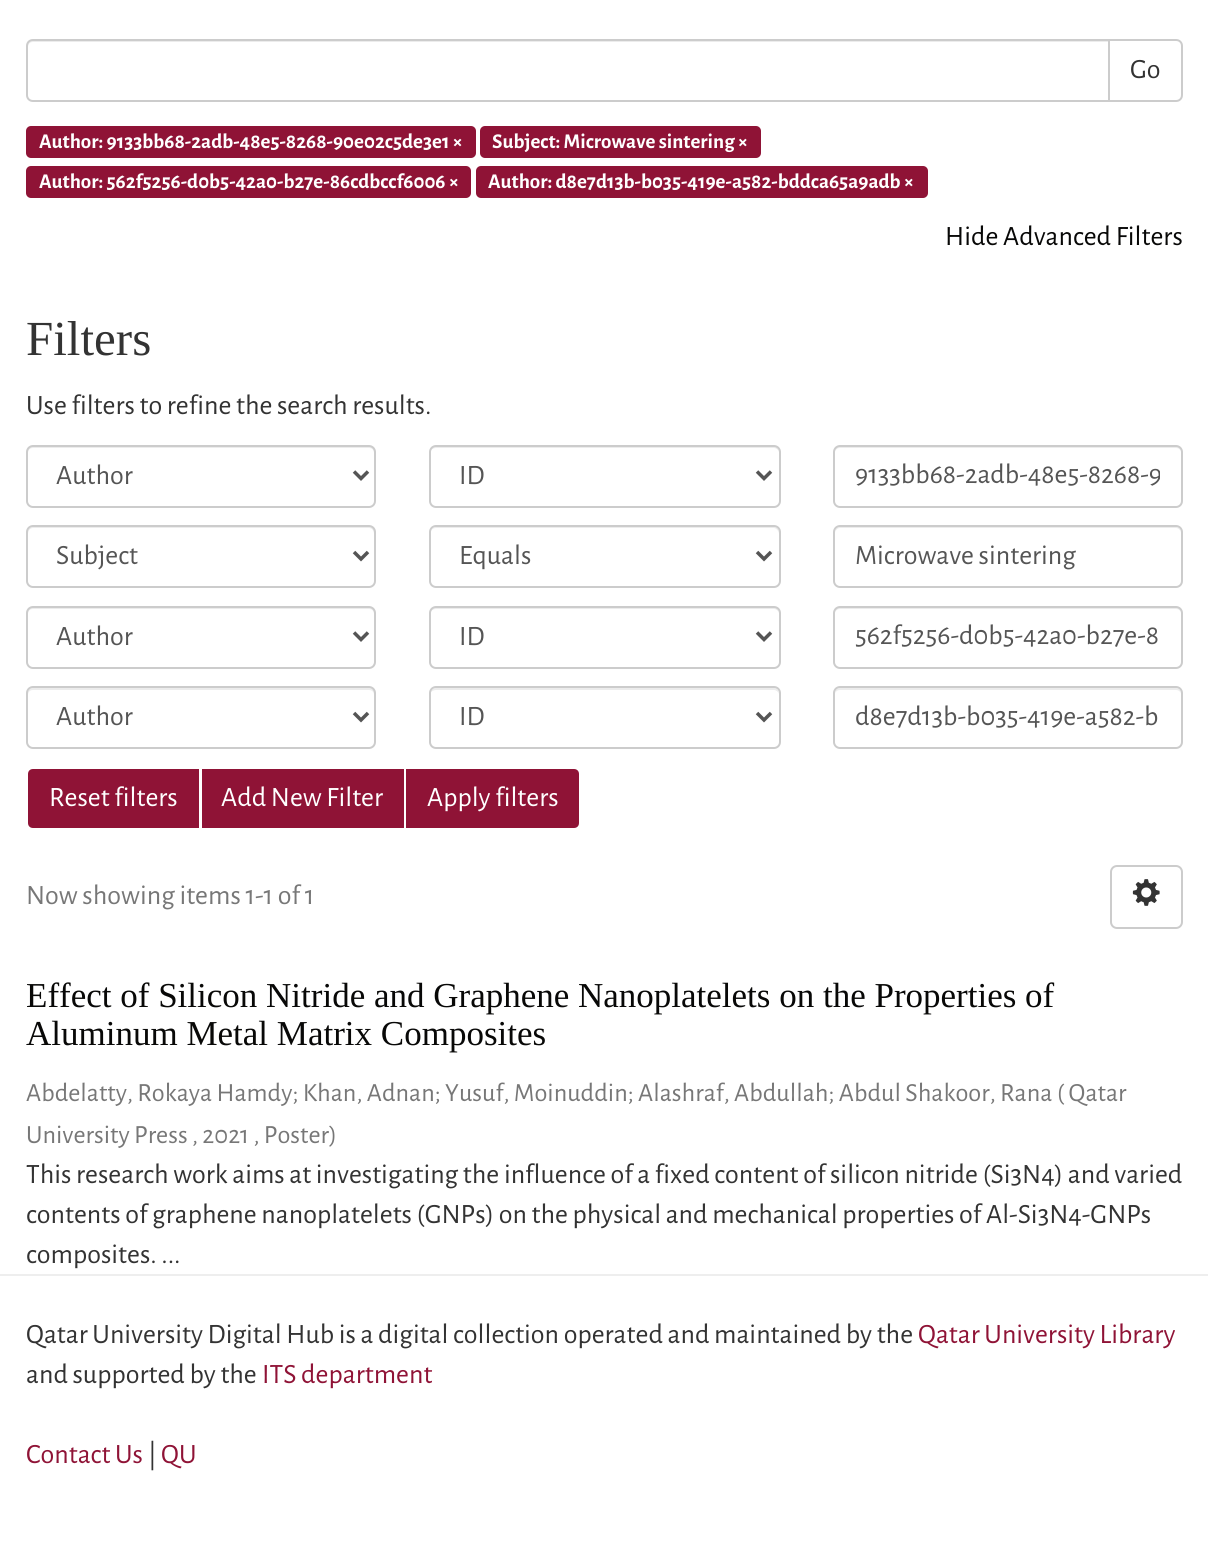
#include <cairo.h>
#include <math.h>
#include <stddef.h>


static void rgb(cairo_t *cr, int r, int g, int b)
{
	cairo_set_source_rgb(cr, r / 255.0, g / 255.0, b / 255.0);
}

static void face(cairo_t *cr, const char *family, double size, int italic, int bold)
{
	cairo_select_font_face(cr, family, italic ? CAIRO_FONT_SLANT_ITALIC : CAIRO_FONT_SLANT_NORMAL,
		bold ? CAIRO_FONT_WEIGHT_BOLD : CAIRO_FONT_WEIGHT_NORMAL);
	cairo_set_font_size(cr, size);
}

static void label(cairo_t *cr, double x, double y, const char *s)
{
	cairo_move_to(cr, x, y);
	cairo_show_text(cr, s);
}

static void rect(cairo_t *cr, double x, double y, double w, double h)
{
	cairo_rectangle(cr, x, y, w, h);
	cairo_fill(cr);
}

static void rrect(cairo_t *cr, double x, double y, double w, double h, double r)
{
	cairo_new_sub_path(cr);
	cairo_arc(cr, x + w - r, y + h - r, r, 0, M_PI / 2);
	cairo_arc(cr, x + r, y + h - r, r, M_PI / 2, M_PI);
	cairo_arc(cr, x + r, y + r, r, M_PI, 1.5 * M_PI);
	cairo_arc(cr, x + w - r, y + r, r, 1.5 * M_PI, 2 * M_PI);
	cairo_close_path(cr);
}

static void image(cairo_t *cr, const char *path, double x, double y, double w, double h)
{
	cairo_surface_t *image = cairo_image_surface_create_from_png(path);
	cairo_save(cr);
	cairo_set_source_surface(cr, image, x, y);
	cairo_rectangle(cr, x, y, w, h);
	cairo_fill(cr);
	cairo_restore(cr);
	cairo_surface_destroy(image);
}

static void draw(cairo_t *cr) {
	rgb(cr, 255, 255, 255);
	cairo_paint(cr);
	cairo_new_path(cr);
	cairo_move_to(cr, 1109, 40);
	cairo_line_to(cr, 1176, 40);
	cairo_curve_to(cr, 1179.5, 40, 1182, 42.5, 1182, 46);
	cairo_line_to(cr, 1182, 95);
	cairo_curve_to(cr, 1182, 98.5, 1179.5, 101, 1176, 101);
	cairo_line_to(cr, 1109, 101);
	cairo_close_path(cr);
	rgb(cr, 204, 204, 204);
	cairo_stroke(cr);
	rgb(cr, 255, 255, 255);
	cairo_new_path(cr);
	cairo_move_to(cr, 33, 39);
	cairo_line_to(cr, 1110, 39);
	cairo_line_to(cr, 1110, 102);
	cairo_line_to(cr, 33, 102);
	cairo_curve_to(cr, 29, 102, 26, 99, 26, 95);
	cairo_line_to(cr, 26, 46);
	cairo_curve_to(cr, 26, 42, 29, 39, 33, 39);
	cairo_close_path(cr);
	cairo_fill(cr);
	rgb(cr, 236, 236, 236);
	cairo_new_path(cr);
	cairo_move_to(cr, 33, 42);
	cairo_line_to(cr, 1108, 42);
	cairo_line_to(cr, 1108, 40);
	cairo_line_to(cr, 33, 40);
	cairo_curve_to(cr, 30, 40, 28, 42, 28, 45);
	cairo_line_to(cr, 28, 47);
	cairo_curve_to(cr, 28, 44, 30, 42, 33, 42);
	cairo_close_path(cr);
	cairo_fill(cr);
	cairo_new_path(cr);
	cairo_move_to(cr, 33, 40);
	cairo_line_to(cr, 1109, 40);
	cairo_line_to(cr, 1109, 101);
	cairo_line_to(cr, 33, 101);
	cairo_curve_to(cr, 29.5, 101, 27, 98.5, 27, 95);
	cairo_line_to(cr, 27, 46);
	cairo_curve_to(cr, 27, 42.5, 29.5, 40, 33, 40);
	cairo_close_path(cr);
	rgb(cr, 204, 204, 204);
	cairo_stroke(cr);
	face(cr, "Alegreya Sans", 28, 0, 0);
	rgb(cr, 51, 51, 51);
	label(cr, 1130, 78, "Go");
	rgb(cr, 143, 19, 54);
	rrect(cr, 26, 126, 450, 32, 5);
	cairo_fill(cr);
	face(cr, "Alegreya Sans", 21, 0, 1);
	rgb(cr, 255, 255, 255);
	label(cr, 39, 148, "Author: 9133bb68-2adb-48e5-8268-90e02c5de3e1 ×");
	rgb(cr, 143, 19, 54);
	rrect(cr, 480, 126, 281, 32, 5);
	cairo_fill(cr);
	rgb(cr, 255, 255, 255);
	label(cr, 492, 148, "Subject: Microwave sintering ×");
	rgb(cr, 143, 19, 54);
	rrect(cr, 26, 166, 445, 32, 5);
	cairo_fill(cr);
	rgb(cr, 255, 255, 255);
	label(cr, 39, 188, "Author: 562f5256-d0b5-42a0-b27e-86cdbccf6006 ×");
	rgb(cr, 143, 19, 54);
	rrect(cr, 476, 166, 452, 32, 5);
	cairo_fill(cr);
	rgb(cr, 255, 255, 255);
	label(cr, 488, 188, "Author: d8e7d13b-b035-419e-a582-bddca65a9adb ×");
	face(cr, "Alegreya Sans", 28, 0, 0);
	rgb(cr, 8, 8, 7);
	label(cr, 945, 245, "Hide Advanced Filters");
	face(cr, "Liberation Serif", 49, 0, 0);
	rgb(cr, 51, 51, 51);
	label(cr, 26, 355, "Filters");
	face(cr, "Alegreya Sans", 28, 0, 0);
	label(cr, 26, 414, "Use filters to refine the search results.");
	rgb(cr, 236, 236, 236);
	cairo_new_path(cr);
	cairo_move_to(cr, 33, 448);
	cairo_line_to(cr, 369, 448);
	cairo_curve_to(cr, 372, 448, 374, 450, 374, 453);
	cairo_line_to(cr, 374, 502);
	cairo_line_to(cr, 374, 505);
	cairo_curve_to(cr, 374, 504, 375, 502, 375, 501);
	cairo_line_to(cr, 375, 451);
	cairo_curve_to(cr, 375, 448, 373, 446, 370, 446);
	cairo_line_to(cr, 33, 446);
	cairo_curve_to(cr, 30, 446, 28, 448, 28, 451);
	cairo_line_to(cr, 28, 453);
	cairo_curve_to(cr, 28, 450, 30, 448, 33, 448);
	cairo_close_path(cr);
	cairo_fill(cr);
	rrect(cr, 27, 446, 348, 61, 6);
	rgb(cr, 204, 204, 204);
	cairo_stroke(cr);
	cairo_new_path(cr);
	cairo_move_to(cr, 354, 471.5);
	cairo_line_to(cr, 361, 478.5);
	cairo_line_to(cr, 368, 471.5);
	rgb(cr, 85, 85, 85);
	cairo_set_line_width(cr, 3.5);
	cairo_stroke(cr);
	label(cr, 56, 484, "Author");
	rgb(cr, 236, 236, 236);
	cairo_new_path(cr);
	cairo_move_to(cr, 436, 448);
	cairo_line_to(cr, 774, 448);
	cairo_curve_to(cr, 776, 448, 779, 450, 779, 453);
	cairo_curve_to(cr, 779, 450, 778, 446, 774, 446);
	cairo_line_to(cr, 436, 446);
	cairo_curve_to(cr, 434, 446, 431, 448, 431, 450);
	cairo_curve_to(cr, 432, 449, 434, 448, 436, 448);
	cairo_close_path(cr);
	cairo_fill(cr);
	rrect(cr, 430, 446, 350, 61, 6);
	rgb(cr, 204, 204, 204);
	cairo_set_line_width(cr, 2);
	cairo_stroke(cr);
	cairo_new_path(cr);
	cairo_move_to(cr, 757, 471.5);
	cairo_line_to(cr, 764, 478.5);
	cairo_line_to(cr, 771, 471.5);
	rgb(cr, 85, 85, 85);
	cairo_set_line_width(cr, 3.5);
	cairo_stroke(cr);
	label(cr, 459, 484, "ID");
	rgb(cr, 236, 236, 236);
	cairo_new_path(cr);
	cairo_move_to(cr, 840, 448);
	cairo_line_to(cr, 1176, 448);
	cairo_curve_to(cr, 1179, 448, 1181, 450, 1181, 453);
	cairo_curve_to(cr, 1181, 450, 1180, 446, 1176, 446);
	cairo_line_to(cr, 840, 446);
	cairo_curve_to(cr, 836, 446, 835, 450, 835, 453);
	cairo_curve_to(cr, 835, 450, 837, 448, 840, 448);
	cairo_close_path(cr);
	cairo_fill(cr);
	rrect(cr, 834, 446, 348, 61, 6);
	rgb(cr, 204, 204, 204);
	cairo_set_line_width(cr, 2);
	cairo_stroke(cr);
	cairo_save(cr);
	cairo_rectangle(cr, 856, 459, 304, 33);
	cairo_clip(cr);
	rgb(cr, 85, 85, 85);
	label(cr, 855, 483, "9133bb68-2adb-48e5-8268-9");
	cairo_restore(cr);
	rgb(cr, 236, 236, 236);
	cairo_new_path(cr);
	cairo_move_to(cr, 33, 528);
	cairo_line_to(cr, 369, 528);
	cairo_curve_to(cr, 372, 528, 374, 531, 374, 534);
	cairo_line_to(cr, 374, 584);
	cairo_curve_to(cr, 375, 583, 375, 582, 375, 581);
	cairo_line_to(cr, 375, 532);
	cairo_curve_to(cr, 375, 529, 373, 527, 370, 527);
	cairo_line_to(cr, 33, 527);
	cairo_curve_to(cr, 30, 527, 28, 529, 28, 532);
	cairo_line_to(cr, 28, 534);
	cairo_curve_to(cr, 28, 531, 30, 528, 33, 528);
	cairo_close_path(cr);
	cairo_fill(cr);
	rrect(cr, 27, 526, 348, 61, 6);
	rgb(cr, 204, 204, 204);
	cairo_stroke(cr);
	cairo_new_path(cr);
	cairo_move_to(cr, 354, 552);
	cairo_line_to(cr, 361, 559);
	cairo_line_to(cr, 368, 552);
	rgb(cr, 85, 85, 85);
	cairo_set_line_width(cr, 3.5);
	cairo_stroke(cr);
	label(cr, 56, 564, "Subject");
	rgb(cr, 236, 236, 236);
	cairo_new_path(cr);
	cairo_move_to(cr, 436, 528);
	cairo_line_to(cr, 774, 528);
	cairo_curve_to(cr, 776, 528, 779, 531, 779, 534);
	cairo_line_to(cr, 779, 532);
	cairo_curve_to(cr, 779, 529, 777, 527, 774, 527);
	cairo_line_to(cr, 436, 527);
	cairo_curve_to(cr, 434, 527, 432, 529, 431, 531);
	cairo_curve_to(cr, 432, 529, 434, 528, 436, 528);
	cairo_close_path(cr);
	cairo_fill(cr);
	rrect(cr, 430, 526, 350, 61, 6);
	rgb(cr, 204, 204, 204);
	cairo_set_line_width(cr, 2);
	cairo_stroke(cr);
	cairo_new_path(cr);
	cairo_move_to(cr, 757, 552);
	cairo_line_to(cr, 764, 559);
	cairo_line_to(cr, 771, 552);
	rgb(cr, 85, 85, 85);
	cairo_set_line_width(cr, 3.5);
	cairo_stroke(cr);
	label(cr, 459, 564, "Equals");
	rgb(cr, 236, 236, 236);
	cairo_new_path(cr);
	cairo_move_to(cr, 840, 528);
	cairo_line_to(cr, 1176, 528);
	cairo_curve_to(cr, 1179, 528, 1181, 531, 1181, 534);
	cairo_curve_to(cr, 1181, 531, 1180, 527, 1176, 527);
	cairo_line_to(cr, 840, 527);
	cairo_curve_to(cr, 836, 527, 835, 531, 835, 534);
	cairo_curve_to(cr, 835, 531, 837, 528, 840, 528);
	cairo_close_path(cr);
	cairo_fill(cr);
	rrect(cr, 834, 526, 348, 61, 6);
	rgb(cr, 204, 204, 204);
	cairo_set_line_width(cr, 2);
	cairo_stroke(cr);
	rgb(cr, 85, 85, 85);
	label(cr, 855, 564, "Microwave sintering");
	rgb(cr, 236, 236, 236);
	cairo_new_path(cr);
	cairo_move_to(cr, 33, 609);
	cairo_line_to(cr, 369, 609);
	cairo_curve_to(cr, 372, 609, 374, 611, 374, 614);
	cairo_line_to(cr, 374, 663);
	cairo_line_to(cr, 373, 666);
	cairo_curve_to(cr, 374, 665, 375, 663, 375, 662);
	cairo_line_to(cr, 375, 612);
	cairo_curve_to(cr, 375, 609, 373, 607, 370, 607);
	cairo_line_to(cr, 33, 607);
	cairo_curve_to(cr, 30, 607, 28, 609, 28, 612);
	cairo_line_to(cr, 28, 614);
	cairo_curve_to(cr, 28, 611, 30, 609, 33, 609);
	cairo_close_path(cr);
	cairo_fill(cr);
	rrect(cr, 27, 607, 348, 61, 6);
	rgb(cr, 204, 204, 204);
	cairo_stroke(cr);
	cairo_new_path(cr);
	cairo_move_to(cr, 354, 632.5);
	cairo_line_to(cr, 361, 639.5);
	cairo_line_to(cr, 368, 632.5);
	rgb(cr, 85, 85, 85);
	cairo_set_line_width(cr, 3.5);
	cairo_stroke(cr);
	label(cr, 56, 645, "Author");
	rgb(cr, 236, 236, 236);
	cairo_new_path(cr);
	cairo_move_to(cr, 436, 609);
	cairo_line_to(cr, 774, 609);
	cairo_curve_to(cr, 776, 609, 779, 611, 779, 614);
	cairo_curve_to(cr, 779, 611, 778, 607, 774, 607);
	cairo_line_to(cr, 436, 607);
	cairo_curve_to(cr, 434, 607, 431, 609, 431, 611);
	cairo_curve_to(cr, 432, 610, 434, 609, 436, 609);
	cairo_close_path(cr);
	cairo_fill(cr);
	rrect(cr, 430, 607, 350, 61, 6);
	rgb(cr, 204, 204, 204);
	cairo_set_line_width(cr, 2);
	cairo_stroke(cr);
	cairo_new_path(cr);
	cairo_move_to(cr, 757, 632.5);
	cairo_line_to(cr, 764, 639.5);
	cairo_line_to(cr, 771, 632.5);
	rgb(cr, 85, 85, 85);
	cairo_set_line_width(cr, 3.5);
	cairo_stroke(cr);
	label(cr, 459, 645, "ID");
	rgb(cr, 236, 236, 236);
	cairo_new_path(cr);
	cairo_move_to(cr, 840, 609);
	cairo_line_to(cr, 1176, 609);
	cairo_curve_to(cr, 1179, 609, 1181, 611, 1181, 614);
	cairo_curve_to(cr, 1181, 611, 1180, 607, 1176, 607);
	cairo_line_to(cr, 840, 607);
	cairo_curve_to(cr, 836, 607, 835, 611, 835, 614);
	cairo_curve_to(cr, 835, 611, 837, 609, 840, 609);
	cairo_close_path(cr);
	cairo_fill(cr);
	rrect(cr, 834, 607, 348, 61, 6);
	rgb(cr, 204, 204, 204);
	cairo_set_line_width(cr, 2);
	cairo_stroke(cr);
	rgb(cr, 85, 85, 85);
	label(cr, 855, 644, "562f5256-d0b5-42a0-b27e-8");
	rgb(cr, 236, 236, 236);
	cairo_new_path(cr);
	cairo_move_to(cr, 33, 690);
	cairo_line_to(cr, 369, 690);
	cairo_curve_to(cr, 372, 690, 374, 692, 374, 695);
	cairo_line_to(cr, 374, 745);
	cairo_curve_to(cr, 375, 744, 375, 743, 375, 742);
	cairo_line_to(cr, 375, 693);
	cairo_curve_to(cr, 375, 690, 373, 688, 370, 688);
	cairo_line_to(cr, 33, 688);
	cairo_curve_to(cr, 30, 688, 28, 690, 28, 693);
	cairo_line_to(cr, 28, 695);
	cairo_curve_to(cr, 28, 692, 30, 690, 33, 690);
	cairo_close_path(cr);
	cairo_fill(cr);
	rrect(cr, 27, 687, 348, 61, 6);
	rgb(cr, 204, 204, 204);
	cairo_stroke(cr);
	cairo_new_path(cr);
	cairo_move_to(cr, 354, 713);
	cairo_line_to(cr, 361, 720);
	cairo_line_to(cr, 368, 713);
	rgb(cr, 85, 85, 85);
	cairo_set_line_width(cr, 3.5);
	cairo_stroke(cr);
	label(cr, 56, 725, "Author");
	rgb(cr, 236, 236, 236);
	cairo_new_path(cr);
	cairo_move_to(cr, 436, 690);
	cairo_line_to(cr, 774, 690);
	cairo_curve_to(cr, 776, 690, 779, 692, 779, 695);
	cairo_curve_to(cr, 779, 692, 778, 688, 774, 688);
	cairo_line_to(cr, 436, 688);
	cairo_curve_to(cr, 434, 688, 431, 690, 431, 692);
	cairo_curve_to(cr, 432, 691, 434, 690, 436, 690);
	cairo_close_path(cr);
	cairo_fill(cr);
	rrect(cr, 430, 687, 350, 61, 6);
	rgb(cr, 204, 204, 204);
	cairo_set_line_width(cr, 2);
	cairo_stroke(cr);
	cairo_new_path(cr);
	cairo_move_to(cr, 757, 713);
	cairo_line_to(cr, 764, 720);
	cairo_line_to(cr, 771, 713);
	rgb(cr, 85, 85, 85);
	cairo_set_line_width(cr, 3.5);
	cairo_stroke(cr);
	label(cr, 459, 725, "ID");
	rgb(cr, 236, 236, 236);
	cairo_new_path(cr);
	cairo_move_to(cr, 840, 690);
	cairo_line_to(cr, 1176, 690);
	cairo_curve_to(cr, 1179, 690, 1181, 692, 1181, 695);
	cairo_curve_to(cr, 1181, 692, 1180, 688, 1176, 688);
	cairo_line_to(cr, 840, 688);
	cairo_curve_to(cr, 836, 688, 835, 692, 835, 695);
	cairo_curve_to(cr, 835, 692, 837, 690, 840, 690);
	cairo_close_path(cr);
	cairo_fill(cr);
	rrect(cr, 834, 687, 348, 61, 6);
	rgb(cr, 204, 204, 204);
	cairo_set_line_width(cr, 2);
	cairo_stroke(cr);
	rgb(cr, 85, 85, 85);
	label(cr, 855, 725, "d8e7d13b-b035-419e-a582-b");
	rgb(cr, 143, 19, 54);
	cairo_new_path(cr);
	cairo_move_to(cr, 33, 768);
	cairo_line_to(cr, 200, 768);
	cairo_line_to(cr, 200, 829);
	cairo_line_to(cr, 33, 829);
	cairo_curve_to(cr, 29.5, 829, 27, 826.5, 27, 823);
	cairo_line_to(cr, 27, 774);
	cairo_curve_to(cr, 27, 770.5, 29.5, 768, 33, 768);
	cairo_close_path(cr);
	cairo_fill_preserve(cr);
	rgb(cr, 255, 255, 255);
	cairo_stroke(cr);
	label(cr, 49, 806, "Reset filters");
	rgb(cr, 143, 19, 54);
	rect(cr, 202, 769, 202, 59);
	rgb(cr, 255, 255, 255);
	label(cr, 221, 806, "Add New Filter");
	rgb(cr, 143, 19, 54);
	cairo_new_path(cr);
	cairo_move_to(cr, 405, 768);
	cairo_line_to(cr, 574, 768);
	cairo_curve_to(cr, 577.5, 768, 580, 770.5, 580, 774);
	cairo_line_to(cr, 580, 823);
	cairo_curve_to(cr, 580, 826.5, 577.5, 829, 574, 829);
	cairo_line_to(cr, 405, 829);
	cairo_close_path(cr);
	cairo_fill_preserve(cr);
	rgb(cr, 255, 255, 255);
	cairo_stroke(cr);
	label(cr, 427, 806, "Apply filters");
	rgb(cr, 119, 119, 119);
	label(cr, 26, 904, "Now showing items 1-1 of 1");
	rrect(cr, 1111, 866, 71, 62, 6);
	rgb(cr, 204, 204, 204);
	cairo_stroke(cr);
	image(cr, "image0.png", 1132, 879, 28, 27);
	face(cr, "Liberation Serif", 35, 0, 0);
	rgb(cr, 8, 8, 7);
	label(cr, 26, 1007, "Effect of Silicon Nitride and Graphene Nanoplatelets on the Properties of");
	label(cr, 26, 1045, "Aluminum Metal Matrix Composites");
	face(cr, "Alegreya Sans", 26.25, 0, 0);
	rgb(cr, 119, 119, 119);
	label(cr, 26, 1101, "Abdelatty, Rokaya Hamdy; Khan, Adnan; Yusuf, Moinuddin; Alashraf, Abdullah; Abdul Shakoor, Rana ( Qatar");
	label(cr, 26, 1143, "University Press , 2021 , Poster)");
	face(cr, "Alegreya Sans", 28, 0, 0);
	rgb(cr, 51, 51, 51);
	label(cr, 26, 1183, "This research work aims at investigating the influence of a fixed content of silicon nitride (Si3N4) and varied");
	label(cr, 26, 1223, "contents of graphene nanoplatelets (GNPs) on the physical and mechanical properties of Al-Si3N4-GNPs");
	label(cr, 26, 1263, "composites. ...");
	rgb(cr, 238, 238, 238);
	rect(cr, 0, 1274, 1208, 2);
	rgb(cr, 51, 51, 51);
	label(cr, 26, 1343, "Qatar University Digital Hub is a digital collection operated and maintained by the");
	rgb(cr, 143, 19, 54);
	label(cr, 918, 1343, "Qatar University Library");
	rgb(cr, 51, 51, 51);
	label(cr, 26, 1383, "and supported by the");
	rgb(cr, 143, 19, 54);
	label(cr, 262, 1383, "ITS department");
	label(cr, 26, 1463, "Contact Us");
	rgb(cr, 51, 51, 51);
	label(cr, 148, 1463, "|");
	rgb(cr, 143, 19, 54);
	label(cr, 161, 1463, "QU");
}

int main(void) {
	cairo_surface_t *surface = cairo_image_surface_create(CAIRO_FORMAT_RGB24, 1208, 1567);
	cairo_t *cr = cairo_create(surface);
	cairo_font_options_t *options = cairo_font_options_create();
	cairo_font_options_set_hint_metrics(options, CAIRO_HINT_METRICS_OFF);
	cairo_font_options_set_hint_style(options, CAIRO_HINT_STYLE_NONE);
	cairo_set_font_options(cr, options);
	cairo_set_miter_limit(cr, 4);
	draw(cr);
	cairo_surface_write_to_png(surface, "render.png");
	cairo_font_options_destroy(options);
	cairo_destroy(cr);
	cairo_surface_destroy(surface);
	return 0;
}
